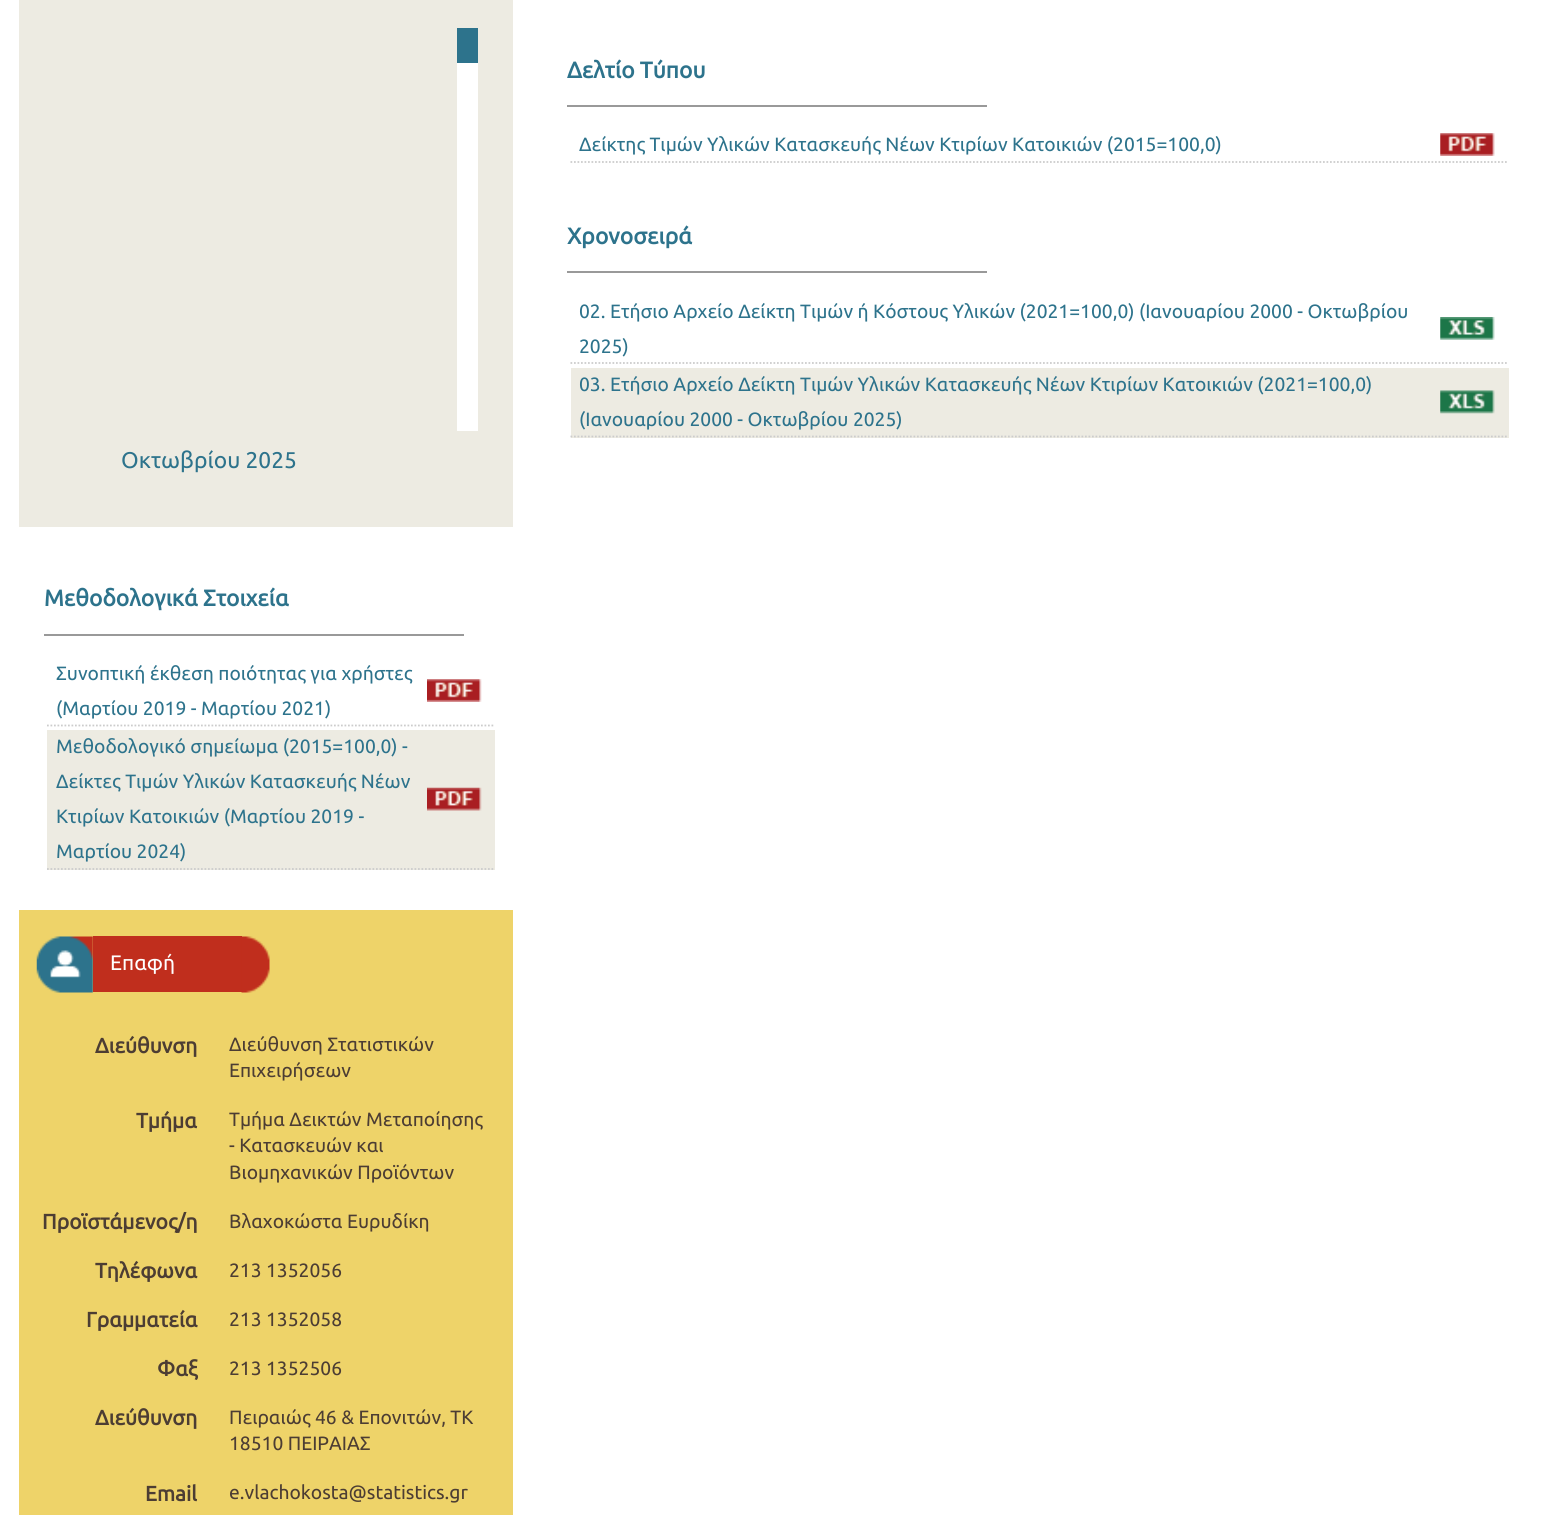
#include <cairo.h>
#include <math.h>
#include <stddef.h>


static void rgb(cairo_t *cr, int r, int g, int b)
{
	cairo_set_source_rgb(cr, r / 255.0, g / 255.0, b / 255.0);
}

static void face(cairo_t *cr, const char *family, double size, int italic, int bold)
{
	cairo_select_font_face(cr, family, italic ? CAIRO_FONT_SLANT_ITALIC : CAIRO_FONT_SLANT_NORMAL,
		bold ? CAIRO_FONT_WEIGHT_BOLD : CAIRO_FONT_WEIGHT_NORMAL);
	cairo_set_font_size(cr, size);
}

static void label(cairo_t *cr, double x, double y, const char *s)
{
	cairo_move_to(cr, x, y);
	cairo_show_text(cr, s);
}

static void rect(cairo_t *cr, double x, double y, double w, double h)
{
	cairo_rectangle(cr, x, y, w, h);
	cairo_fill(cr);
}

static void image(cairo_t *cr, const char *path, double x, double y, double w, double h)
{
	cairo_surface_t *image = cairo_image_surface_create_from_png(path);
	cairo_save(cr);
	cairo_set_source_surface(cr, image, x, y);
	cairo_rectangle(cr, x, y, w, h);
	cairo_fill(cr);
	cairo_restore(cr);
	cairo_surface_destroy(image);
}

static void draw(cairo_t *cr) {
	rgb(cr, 255, 255, 255);
	cairo_paint(cr);
	rgb(cr, 153, 153, 153);
	rect(cr, 567, 105, 420, 2);
	face(cr, "Ubuntu", 22.75, 0, 1);
	rgb(cr, 45, 115, 140);
	label(cr, 567, 78, "Δελτίο Τύπου");
	cairo_new_path(cr);
	cairo_move_to(cr, 570.5, 162);
	cairo_line_to(cr, 1508.5, 162);
	rgb(cr, 204, 204, 204);
	cairo_set_line_width(cr, 1.8);
	cairo_set_dash(cr, (double[]){1.75, 1.75}, 2, 0);
	cairo_stroke(cr);
	face(cr, "Ubuntu", 19.25, 0, 0);
	rgb(cr, 45, 115, 140);
	label(cr, 579, 151, "Δείκτης Τιμών Υλικών Κατασκευής Νέων Κτιρίων Κατοικιών (2015=100,0)");
	image(cr, "image0.png", 1440, 133, 55, 23);
	rgb(cr, 153, 153, 153);
	rect(cr, 567, 271, 420, 2);
	face(cr, "Ubuntu", 22.75, 0, 1);
	rgb(cr, 45, 115, 140);
	label(cr, 567, 244, "Χρονοσειρά");
	cairo_new_path(cr);
	cairo_move_to(cr, 570.5, 363);
	cairo_line_to(cr, 1508.5, 363);
	rgb(cr, 204, 204, 204);
	cairo_stroke(cr);
	face(cr, "Ubuntu", 19.25, 0, 0);
	rgb(cr, 45, 115, 140);
	label(cr, 579, 318, "02. Ετήσιο Αρχείο Δείκτη Τιμών ή Κόστους Υλικών (2021=100,0) (Ιανουαρίου 2000 - Οκτωβρίου");
	label(cr, 579, 353, "2025)");
	image(cr, "image1.png", 1440, 317, 55, 23);
	rgb(cr, 237, 235, 226);
	rect(cr, 571, 368, 938, 70);
	cairo_new_path(cr);
	cairo_move_to(cr, 570.5, 436.5);
	cairo_line_to(cr, 1508.5, 436.5);
	rgb(cr, 204, 204, 204);
	cairo_stroke(cr);
	rgb(cr, 45, 115, 140);
	label(cr, 579, 391, "03. Ετήσιο Αρχείο Δείκτη Τιμών Υλικών Κατασκευής Νέων Κτιρίων Κατοικιών (2021=100,0)");
	label(cr, 579, 426, "(Ιανουαρίου 2000 - Οκτωβρίου 2025)");
	image(cr, "image2.png", 1440, 390, 55, 24);
	rgb(cr, 237, 235, 226);
	rect(cr, 19, 0, 494, 527);
	rgb(cr, 255, 255, 255);
	rect(cr, 457, 63, 21, 368);
	rgb(cr, 45, 115, 140);
	rect(cr, 457, 28, 21, 35);
	face(cr, "Ubuntu", 22.75, 0, 0);
	label(cr, 121, 468, "Οκτωβρίου 2025");
	rgb(cr, 153, 153, 153);
	rect(cr, 44, 634, 420, 2);
	face(cr, "Ubuntu", 22.75, 0, 1);
	rgb(cr, 45, 115, 140);
	label(cr, 44, 606, "Μεθοδολογικά Στοιχεία");
	cairo_new_path(cr);
	cairo_move_to(cr, 47, 725.5);
	cairo_line_to(cr, 495, 725.5);
	rgb(cr, 204, 204, 204);
	cairo_stroke(cr);
	face(cr, "Ubuntu", 19.25, 0, 0);
	rgb(cr, 45, 115, 140);
	label(cr, 56, 680, "Συνοπτική έκθεση ποιότητας για χρήστες");
	label(cr, 56, 715, "(Μαρτίου 2019 - Μαρτίου 2021)");
	image(cr, "image3.png", 427, 679, 55, 23);
	rgb(cr, 237, 235, 226);
	rect(cr, 47, 730, 448, 140);
	cairo_new_path(cr);
	cairo_move_to(cr, 47, 869);
	cairo_line_to(cr, 495, 869);
	rgb(cr, 204, 204, 204);
	cairo_stroke(cr);
	rgb(cr, 45, 115, 140);
	label(cr, 56, 753, "Μεθοδολογικό σημείωμα (2015=100,0) -");
	label(cr, 56, 788, "Δείκτες Τιμών Υλικών Κατασκευής Νέων");
	label(cr, 56, 823, "Κτιρίων Κατοικιών (Μαρτίου 2019 -");
	label(cr, 56, 858, "Μαρτίου 2024)");
	image(cr, "image4.png", 427, 787, 55, 24);
	rgb(cr, 238, 211, 105);
	rect(cr, 19, 910, 494, 605);
	image(cr, "image5.png", 36, 936, 57, 57);
	rgb(cr, 192, 46, 29);
	rect(cr, 93, 936, 149, 56);
	face(cr, "Ubuntu", 21, 0, 0);
	rgb(cr, 255, 255, 255);
	label(cr, 110, 970, "Επαφή");
	image(cr, "image6.png", 241, 936, 29, 57);
	face(cr, "Ubuntu", 21, 0, 1);
	rgb(cr, 76, 61, 51);
	label(cr, 95, 1053, "Διεύθυνση");
	face(cr, "Ubuntu", 19.25, 0, 0);
	label(cr, 229, 1051, "Διεύθυνση Στατιστικών");
	label(cr, 229, 1077, "Επιχειρήσεων");
	face(cr, "Ubuntu", 21, 0, 1);
	label(cr, 136, 1128, "Τμήμα");
	face(cr, "Ubuntu", 19.25, 0, 0);
	label(cr, 229, 1126, "Τμήμα Δεικτών Μεταποίησης");
	label(cr, 229, 1152, "- Κατασκευών και");
	label(cr, 229, 1179, "Βιομηχανικών Προϊόντων");
	face(cr, "Ubuntu", 21, 0, 1);
	label(cr, 42, 1229, "Προϊστάμενος/η");
	face(cr, "Ubuntu", 19.25, 0, 0);
	label(cr, 229, 1228, "Βλαχοκώστα Ευρυδίκη");
	face(cr, "Ubuntu", 21, 0, 1);
	label(cr, 95, 1278, "Τηλέφωνα");
	face(cr, "Ubuntu", 19.25, 0, 0);
	label(cr, 229, 1277, "213 1352056");
	face(cr, "Ubuntu", 21, 0, 1);
	label(cr, 86, 1327, "Γραμματεία");
	face(cr, "Ubuntu", 19.25, 0, 0);
	label(cr, 229, 1326, "213 1352058");
	face(cr, "Ubuntu", 21, 0, 1);
	label(cr, 157, 1376, "Φαξ");
	face(cr, "Ubuntu", 19.25, 0, 0);
	label(cr, 229, 1375, "213 1352506");
	face(cr, "Ubuntu", 21, 0, 1);
	label(cr, 95, 1425, "Διεύθυνση");
	face(cr, "Ubuntu", 19.25, 0, 0);
	label(cr, 229, 1424, "Πειραιώς 46 & Επονιτών, ΤΚ");
	label(cr, 229, 1450, "18510 ΠΕΙΡΑΙΑΣ");
	face(cr, "Ubuntu", 21, 0, 1);
	label(cr, 145, 1501, "Email");
	face(cr, "Ubuntu", 19.25, 0, 0);
	label(cr, 229, 1499, "e.vlachokosta@statistics.gr");
}

int main(void) {
	cairo_surface_t *surface = cairo_image_surface_create(CAIRO_FORMAT_RGB24, 1551, 1515);
	cairo_t *cr = cairo_create(surface);
	cairo_font_options_t *options = cairo_font_options_create();
	cairo_font_options_set_hint_metrics(options, CAIRO_HINT_METRICS_OFF);
	cairo_font_options_set_hint_style(options, CAIRO_HINT_STYLE_NONE);
	cairo_set_font_options(cr, options);
	cairo_set_miter_limit(cr, 4);
	draw(cr);
	cairo_surface_write_to_png(surface, "render.png");
	cairo_font_options_destroy(options);
	cairo_destroy(cr);
	cairo_surface_destroy(surface);
	return 0;
}
